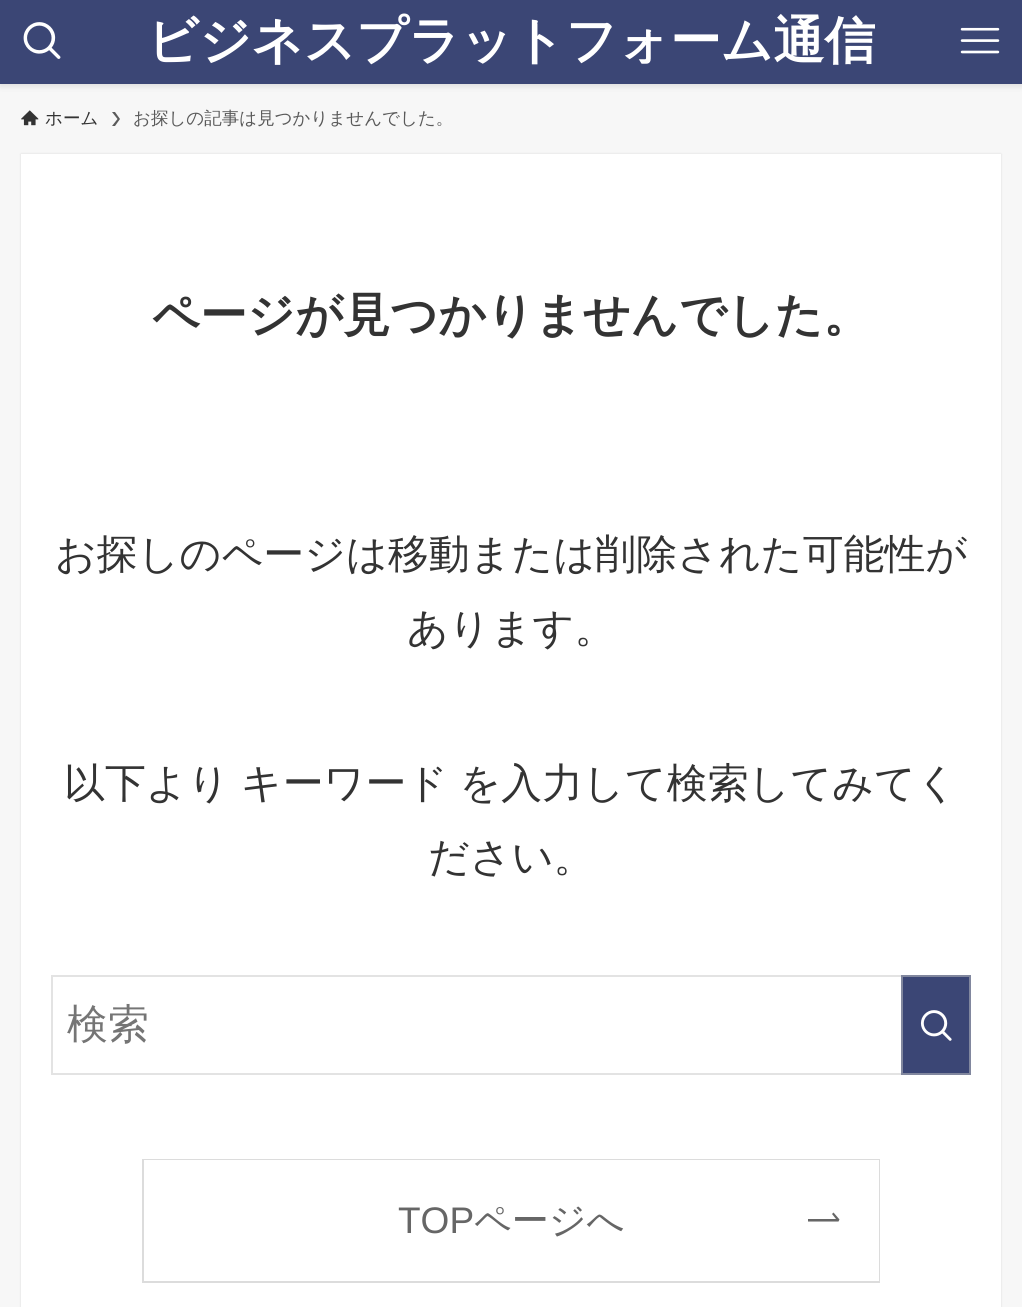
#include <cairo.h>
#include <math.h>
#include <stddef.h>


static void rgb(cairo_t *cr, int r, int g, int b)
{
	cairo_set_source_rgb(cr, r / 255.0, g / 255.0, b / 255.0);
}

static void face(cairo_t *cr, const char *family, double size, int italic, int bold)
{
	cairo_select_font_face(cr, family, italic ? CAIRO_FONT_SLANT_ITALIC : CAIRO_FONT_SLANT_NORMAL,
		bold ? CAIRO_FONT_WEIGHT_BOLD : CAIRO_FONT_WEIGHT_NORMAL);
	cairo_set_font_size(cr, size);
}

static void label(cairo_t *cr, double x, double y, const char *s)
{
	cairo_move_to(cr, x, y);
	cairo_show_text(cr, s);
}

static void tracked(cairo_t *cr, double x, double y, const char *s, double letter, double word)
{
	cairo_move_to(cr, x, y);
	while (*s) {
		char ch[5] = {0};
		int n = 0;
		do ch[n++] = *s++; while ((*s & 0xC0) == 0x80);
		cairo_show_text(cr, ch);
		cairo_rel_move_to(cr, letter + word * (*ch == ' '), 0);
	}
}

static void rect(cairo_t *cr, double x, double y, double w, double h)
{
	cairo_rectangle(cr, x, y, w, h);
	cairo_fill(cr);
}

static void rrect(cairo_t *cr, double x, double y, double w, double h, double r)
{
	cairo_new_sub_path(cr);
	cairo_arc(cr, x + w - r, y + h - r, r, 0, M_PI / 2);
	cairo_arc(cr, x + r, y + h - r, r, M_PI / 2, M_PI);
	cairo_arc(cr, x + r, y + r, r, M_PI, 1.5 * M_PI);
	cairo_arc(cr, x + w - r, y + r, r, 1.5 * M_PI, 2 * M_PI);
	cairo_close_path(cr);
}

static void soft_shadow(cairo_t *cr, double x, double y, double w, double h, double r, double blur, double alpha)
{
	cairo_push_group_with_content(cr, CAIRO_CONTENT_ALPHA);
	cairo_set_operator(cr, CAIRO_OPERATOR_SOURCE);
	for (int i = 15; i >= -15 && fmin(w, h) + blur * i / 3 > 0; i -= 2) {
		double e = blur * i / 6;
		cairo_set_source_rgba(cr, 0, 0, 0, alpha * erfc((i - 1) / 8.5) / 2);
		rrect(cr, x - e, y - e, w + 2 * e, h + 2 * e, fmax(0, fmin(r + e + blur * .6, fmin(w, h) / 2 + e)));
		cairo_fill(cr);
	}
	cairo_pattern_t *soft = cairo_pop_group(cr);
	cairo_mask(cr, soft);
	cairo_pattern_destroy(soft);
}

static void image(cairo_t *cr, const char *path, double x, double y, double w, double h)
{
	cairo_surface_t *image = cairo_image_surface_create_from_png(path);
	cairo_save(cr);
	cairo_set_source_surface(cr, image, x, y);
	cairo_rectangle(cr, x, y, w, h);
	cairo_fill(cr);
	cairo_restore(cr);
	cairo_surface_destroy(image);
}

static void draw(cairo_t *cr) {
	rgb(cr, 247, 247, 247);
	cairo_paint(cr);
	rgb(cr, 0, 0, 0);
	soft_shadow(cr, 0, 2, 1022, 84, 0, 3.5, 0.12);
	rgb(cr, 59, 70, 117);
	rect(cr, 0, 0, 1022, 84);
	image(cr, "image0.png", 23, 22, 38, 37);
	face(cr, "WenQuanYi Zen Hei", 51.1, 0, 1);
	rgb(cr, 255, 255, 255);
	label(cr, 147, 58, "ビジネスプラットフォーム通信");
	image(cr, "image1.png", 960, 27, 40, 27);
	image(cr, "image2.png", 21, 110, 18, 16);
	face(cr, "WenQuanYi Zen Hei Medium", 17.5, 0, 0);
	rgb(cr, 51, 51, 51);
	label(cr, 45, 124, "ホーム");
	rgb(cr, 90, 90, 90);
	cairo_new_path(cr);
	cairo_move_to(cr, 115, 112);
	cairo_line_to(cr, 112, 112);
	cairo_line_to(cr, 117.5, 119);
	cairo_line_to(cr, 112, 126);
	cairo_line_to(cr, 115, 126);
	cairo_line_to(cr, 120, 119);
	cairo_close_path(cr);
	cairo_fill(cr);
	label(cr, 133, 124, "お探しの記事は見つかりませんでした。");
	rgb(cr, 0, 0, 0);
	soft_shadow(cr, 21, 154, 980, 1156, 0, 1, 0.12);
	rgb(cr, 255, 255, 255);
	rect(cr, 21, 154, 980, 1153);
	face(cr, "WenQuanYi Zen Hei", 47, 0, 1);
	rgb(cr, 51, 51, 51);
	label(cr, 152, 331, "ページが見つかりませんでした。");
	face(cr, "WenQuanYi Zen Hei Medium", 40.9, 0, 0);
	label(cr, 55, 568, "お探しのページは移動または削除された可能性が");
	label(cr, 407, 642, "あります。");
	tracked(cr, 64, 797, "以下より キーワード を入力して検索してみてく", 0, -1);
	label(cr, 428, 871, "ださい。");
	cairo_rectangle(cr, 52, 976, 918, 98);
	rgb(cr, 227, 227, 227);
	cairo_stroke(cr);
	rgb(cr, 117, 117, 117);
	label(cr, 67, 1038, "検索");
	rgb(cr, 59, 70, 117);
	cairo_rectangle(cr, 902, 976, 68, 98);
	cairo_fill_preserve(cr);
	rgb(cr, 129, 135, 158);
	cairo_stroke(cr);
	image(cr, "image3.png", 920, 1010, 32, 31);
	cairo_rectangle(cr, 143, 1160, 736, 122);
	rgb(cr, 220, 220, 220);
	cairo_stroke(cr);
	rgb(cr, 255, 255, 255);
	rect(cr, 144, 1160, 735, 121);
	face(cr, "Liberation Sans", 37, 0, 0);
	rgb(cr, 102, 102, 102);
	label(cr, 398, 1233, "TOP");
	face(cr, "WenQuanYi Zen Hei Medium", 37, 0, 0);
	label(cr, 474, 1233, "ページへ");
	cairo_new_path(cr);
	cairo_move_to(cr, 838.5, 1221.5);
	cairo_line_to(cr, 808, 1221.5);
	cairo_line_to(cr, 808, 1219);
	cairo_line_to(cr, 836, 1219);
	cairo_line_to(cr, 832, 1214);
	cairo_line_to(cr, 833.5, 1212.5);
	cairo_line_to(cr, 839.5, 1219.5);
	cairo_close_path(cr);
	cairo_fill(cr);
}

int main(void) {
	cairo_surface_t *surface = cairo_image_surface_create(CAIRO_FORMAT_RGB24, 1022, 1307);
	cairo_t *cr = cairo_create(surface);
	cairo_font_options_t *options = cairo_font_options_create();
	cairo_font_options_set_hint_metrics(options, CAIRO_HINT_METRICS_OFF);
	cairo_font_options_set_hint_style(options, CAIRO_HINT_STYLE_NONE);
	cairo_set_font_options(cr, options);
	cairo_set_miter_limit(cr, 4);
	draw(cr);
	cairo_surface_write_to_png(surface, "render.png");
	cairo_font_options_destroy(options);
	cairo_destroy(cr);
	cairo_surface_destroy(surface);
	return 0;
}
